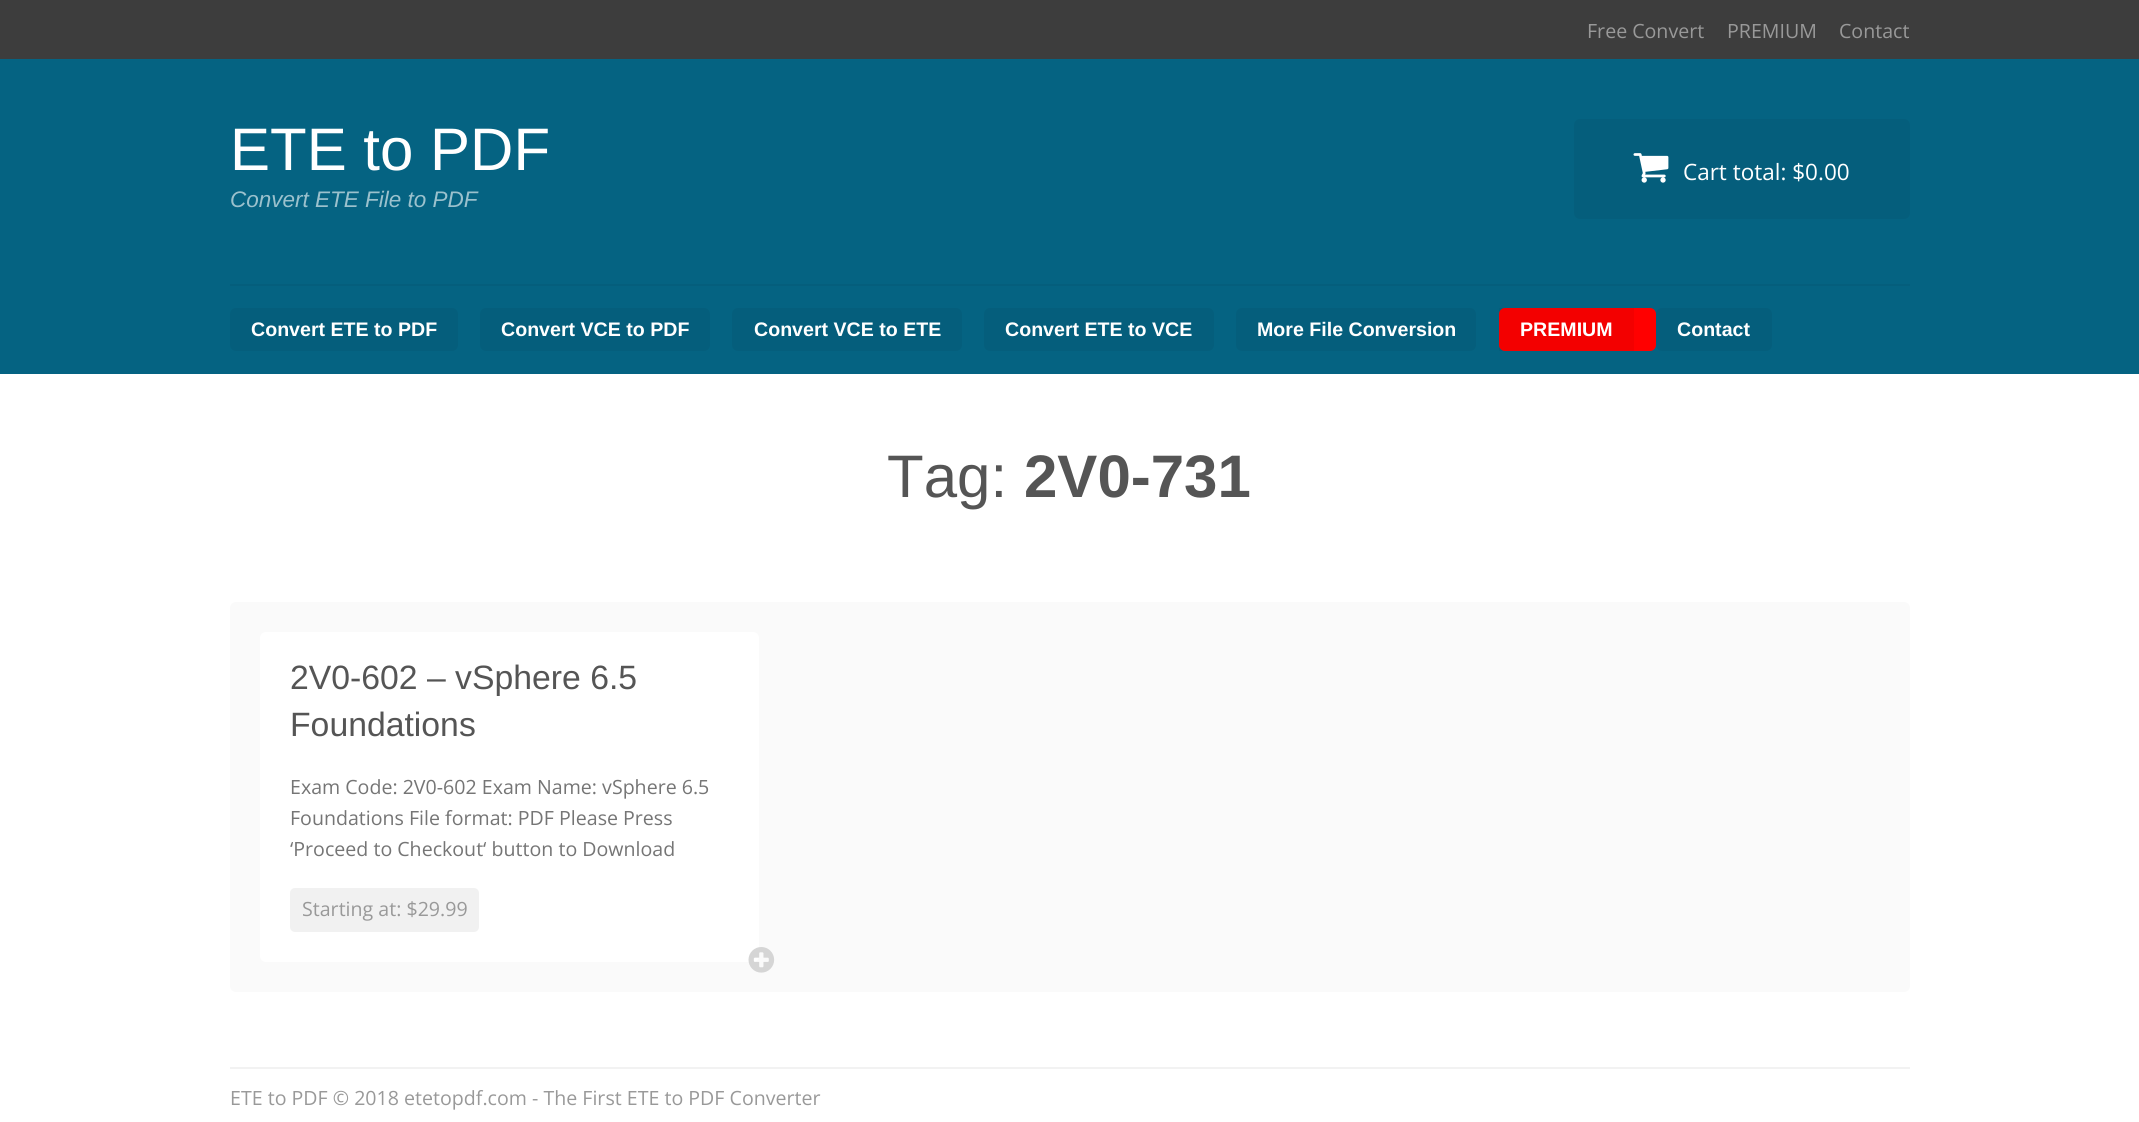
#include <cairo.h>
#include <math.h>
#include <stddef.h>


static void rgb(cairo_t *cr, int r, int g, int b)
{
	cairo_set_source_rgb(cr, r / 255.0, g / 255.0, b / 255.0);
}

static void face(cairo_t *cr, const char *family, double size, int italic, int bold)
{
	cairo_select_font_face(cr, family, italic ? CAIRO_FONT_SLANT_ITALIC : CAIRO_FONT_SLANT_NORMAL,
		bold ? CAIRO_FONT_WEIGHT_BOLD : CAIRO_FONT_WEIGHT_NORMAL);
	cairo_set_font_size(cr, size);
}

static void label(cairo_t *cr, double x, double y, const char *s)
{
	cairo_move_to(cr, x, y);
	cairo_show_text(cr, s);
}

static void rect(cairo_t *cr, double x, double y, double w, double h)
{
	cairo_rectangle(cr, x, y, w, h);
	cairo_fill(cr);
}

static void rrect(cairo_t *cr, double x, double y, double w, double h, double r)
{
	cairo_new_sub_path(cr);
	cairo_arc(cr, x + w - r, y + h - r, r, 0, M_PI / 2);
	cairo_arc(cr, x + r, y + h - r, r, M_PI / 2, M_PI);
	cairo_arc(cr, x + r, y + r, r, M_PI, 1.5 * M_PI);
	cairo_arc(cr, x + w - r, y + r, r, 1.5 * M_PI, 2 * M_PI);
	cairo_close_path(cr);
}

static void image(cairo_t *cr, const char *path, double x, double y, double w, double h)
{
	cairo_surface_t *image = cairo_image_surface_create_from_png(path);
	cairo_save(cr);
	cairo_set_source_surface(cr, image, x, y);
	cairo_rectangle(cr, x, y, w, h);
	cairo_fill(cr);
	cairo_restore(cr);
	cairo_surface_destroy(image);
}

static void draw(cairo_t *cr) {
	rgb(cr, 255, 255, 255);
	cairo_paint(cr);
	rgb(cr, 61, 61, 61);
	rect(cr, 0, 0, 2139, 59);
	face(cr, "Open Sans", 19.6, 0, 0);
	rgb(cr, 153, 153, 153);
	label(cr, 1587, 38, "Free Convert");
	label(cr, 1727, 38, "PREMIUM");
	label(cr, 1839, 38, "Contact");
	rgb(cr, 5, 99, 130);
	rect(cr, 0, 59, 2139, 315);
	face(cr, "Liberation Sans", 60, 0, 0);
	rgb(cr, 255, 255, 255);
	label(cr, 230, 170, "ETE to PDF");
	face(cr, "Liberation Sans", 22.5, 1, 0);
	rgb(cr, 155, 193, 205);
	label(cr, 230, 207, "Convert ETE File to PDF");
	rgb(cr, 5, 94, 124);
	rrect(cr, 1574, 119, 336, 100, 6);
	cairo_fill(cr);
	image(cr, "image0.png", 1633, 153, 36, 30);
	face(cr, "Open Sans", 22.5, 0, 0);
	rgb(cr, 255, 255, 255);
	label(cr, 1683, 180, "Cart total: $0.00");
	rgb(cr, 5, 94, 124);
	rect(cr, 230, 284, 1680, 2);
	rrect(cr, 230, 308, 228, 43, 6);
	cairo_fill(cr);
	face(cr, "Liberation Sans", 19.6, 0, 1);
	rgb(cr, 255, 255, 255);
	label(cr, 251, 336, "Convert ETE to PDF");
	rgb(cr, 5, 94, 124);
	rrect(cr, 480, 308, 230, 43, 6);
	cairo_fill(cr);
	rgb(cr, 255, 255, 255);
	label(cr, 501, 336, "Convert VCE to PDF");
	rgb(cr, 5, 94, 124);
	rrect(cr, 732, 308, 230, 43, 6);
	cairo_fill(cr);
	rgb(cr, 255, 255, 255);
	label(cr, 754, 336, "Convert VCE to ETE");
	rgb(cr, 5, 94, 124);
	rrect(cr, 984, 308, 230, 43, 6);
	cairo_fill(cr);
	rgb(cr, 255, 255, 255);
	label(cr, 1005, 336, "Convert ETE to VCE");
	rgb(cr, 5, 94, 124);
	rrect(cr, 1236, 308, 240, 43, 6);
	cairo_fill(cr);
	rgb(cr, 255, 255, 255);
	label(cr, 1257, 336, "More File Conversion");
	rgb(cr, 255, 0, 0);
	rrect(cr, 1499, 308, 157, 43, 6);
	cairo_fill(cr);
	cairo_set_source_rgba(cr, 0, 0, 0, 0.05);
	rect(cr, 1499, 308, 135, 43);
	rgb(cr, 255, 255, 255);
	label(cr, 1520, 336, "PREMIUM");
	rgb(cr, 5, 94, 124);
	rrect(cr, 1656, 308, 116, 43, 6);
	cairo_fill(cr);
	rgb(cr, 255, 255, 255);
	label(cr, 1677, 336, "Contact");
	face(cr, "Liberation Sans", 60, 0, 0);
	rgb(cr, 85, 85, 85);
	label(cr, 887, 497, "Tag:");
	face(cr, "Liberation Sans", 60, 0, 1);
	label(cr, 1024, 497, "2V0-731");
	rgb(cr, 250, 250, 250);
	rrect(cr, 230, 602, 1680, 390, 6);
	cairo_fill(cr);
	rgb(cr, 255, 255, 255);
	rrect(cr, 260, 632, 499, 330, 6);
	cairo_fill(cr);
	face(cr, "Liberation Sans", 33.75, 0, 0);
	rgb(cr, 85, 85, 85);
	label(cr, 290, 689, "2V0-602 – vSphere 6.5");
	label(cr, 290, 736, "Foundations");
	face(cr, "Open Sans", 19.6, 0, 0);
	rgb(cr, 117, 117, 117);
	label(cr, 290, 794, "Exam Code: 2V0-602 Exam Name: vSphere 6.5");
	label(cr, 290, 825, "Foundations File format: PDF Please Press");
	label(cr, 290, 856, "‘Proceed to Checkout‘ button to Download");
	rgb(cr, 241, 241, 241);
	rrect(cr, 290, 888, 189, 44, 5);
	cairo_fill(cr);
	rgb(cr, 153, 153, 153);
	label(cr, 302, 916, "Starting at: $29.99");
	image(cr, "image1.png", 748, 947, 27, 26);
	rgb(cr, 242, 242, 242);
	rect(cr, 230, 1067, 1680, 2);
	rgb(cr, 153, 153, 153);
	label(cr, 230, 1105, "ETE to PDF © 2018 etetopdf.com - The First ETE to PDF Converter");
}

int main(void) {
	cairo_surface_t *surface = cairo_image_surface_create(CAIRO_FORMAT_RGB24, 2139, 1122);
	cairo_t *cr = cairo_create(surface);
	cairo_font_options_t *options = cairo_font_options_create();
	cairo_font_options_set_hint_metrics(options, CAIRO_HINT_METRICS_OFF);
	cairo_font_options_set_hint_style(options, CAIRO_HINT_STYLE_NONE);
	cairo_set_font_options(cr, options);
	cairo_set_miter_limit(cr, 4);
	draw(cr);
	cairo_surface_write_to_png(surface, "render.png");
	cairo_font_options_destroy(options);
	cairo_destroy(cr);
	cairo_surface_destroy(surface);
	return 0;
}
